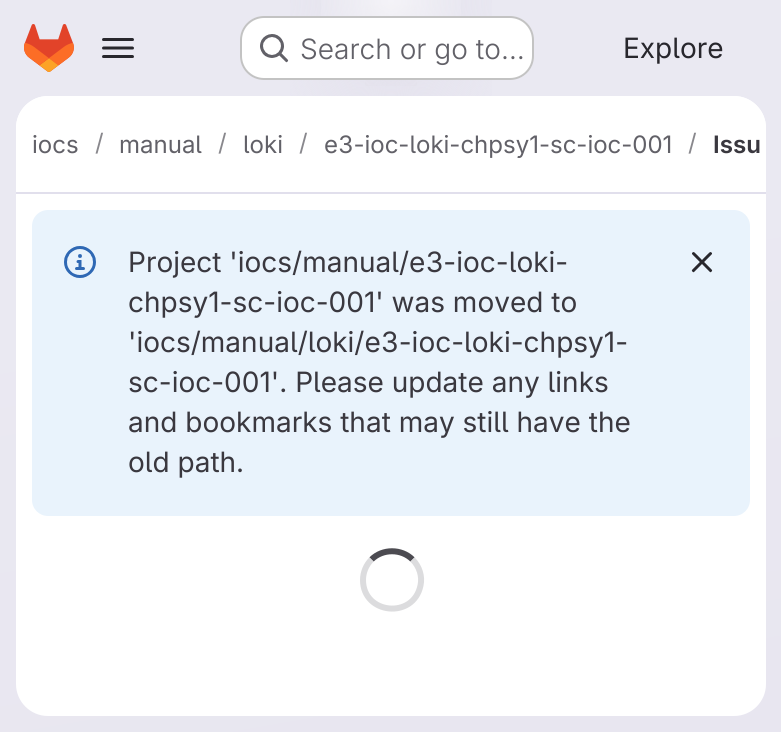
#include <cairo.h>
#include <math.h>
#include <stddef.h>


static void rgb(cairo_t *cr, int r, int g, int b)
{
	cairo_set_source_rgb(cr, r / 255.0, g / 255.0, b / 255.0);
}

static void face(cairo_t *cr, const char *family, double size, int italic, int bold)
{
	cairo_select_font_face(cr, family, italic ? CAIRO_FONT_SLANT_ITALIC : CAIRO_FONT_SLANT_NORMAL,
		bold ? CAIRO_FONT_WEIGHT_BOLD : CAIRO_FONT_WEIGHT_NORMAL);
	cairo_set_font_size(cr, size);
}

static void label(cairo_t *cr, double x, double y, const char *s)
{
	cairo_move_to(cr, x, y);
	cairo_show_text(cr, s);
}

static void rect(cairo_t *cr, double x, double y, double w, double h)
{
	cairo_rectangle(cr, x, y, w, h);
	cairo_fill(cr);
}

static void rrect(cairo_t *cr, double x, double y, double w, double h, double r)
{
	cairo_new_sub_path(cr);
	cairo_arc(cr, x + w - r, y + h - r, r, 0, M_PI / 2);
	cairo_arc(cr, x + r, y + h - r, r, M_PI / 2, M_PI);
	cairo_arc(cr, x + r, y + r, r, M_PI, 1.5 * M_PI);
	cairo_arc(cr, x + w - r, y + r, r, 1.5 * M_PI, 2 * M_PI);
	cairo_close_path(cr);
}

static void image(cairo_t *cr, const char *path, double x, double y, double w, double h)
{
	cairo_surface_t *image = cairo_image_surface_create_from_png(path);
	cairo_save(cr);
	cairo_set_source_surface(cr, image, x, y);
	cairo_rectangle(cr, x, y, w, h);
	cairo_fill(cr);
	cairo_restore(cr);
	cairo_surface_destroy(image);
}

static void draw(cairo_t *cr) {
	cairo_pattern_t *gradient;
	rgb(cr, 255, 255, 255);
	cairo_paint(cr);
	gradient = cairo_pattern_create_linear(465, 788, 317, -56);
	cairo_pattern_add_color_stop_rgba(gradient, 0, 0.91, 0.902, 0.941, 1);
	cairo_pattern_add_color_stop_rgba(gradient, 0.7, 0.918, 0.914, 0.949, 1);
	cairo_set_source(cr, gradient);
	cairo_pattern_destroy(gradient);
	rect(cr, 0, 0, 781, 732);
	gradient = cairo_pattern_create_radial(0, 0, 0, 0, 0, 1);
	cairo_pattern_set_matrix(gradient, &(cairo_matrix_t){1.0 / 391, 0, 0, 1.0 / 732, -1.0 * 391 / 391, -1.0 * 0 / 732});
	cairo_pattern_add_color_stop_rgba(gradient, 0, 0.894, 0.886, 0.929, 1);
	cairo_pattern_add_color_stop_rgba(gradient, 0.36, 0.894, 0.886, 0.929, 0);
	cairo_set_source(cr, gradient);
	cairo_pattern_destroy(gradient);
	rect(cr, 290, 0, 202, 96);
	gradient = cairo_pattern_create_radial(0, 0, 0, 0, 0, 1);
	cairo_pattern_set_matrix(gradient, &(cairo_matrix_t){1.0 / 391, 0, 0, 1.0 / 732, -1.0 * 391 / 391, -1.0 * 0 / 732});
	cairo_pattern_add_color_stop_rgba(gradient, 0, 0.894, 0.886, 0.925, 1);
	cairo_pattern_add_color_stop_rgba(gradient, 0.26, 0.894, 0.886, 0.925, 0);
	cairo_set_source(cr, gradient);
	cairo_pattern_destroy(gradient);
	rect(cr, 365, 5, 52, 81);
	gradient = cairo_pattern_create_radial(391, 0, 0, 391, 0, 830);
	cairo_pattern_add_color_stop_rgba(gradient, 0, 1, 1, 1, 0.6);
	cairo_pattern_add_color_stop_rgba(gradient, 0.1, 1, 1, 1, 0);
	cairo_set_source(cr, gradient);
	cairo_pattern_destroy(gradient);
	rect(cr, 321, 0, 140, 16);
	image(cr, "image0.png", 24, 24, 50, 48);
	image(cr, "image1.png", 102, 38, 32, 20);
	rgb(cr, 255, 255, 255);
	rrect(cr, 240, 16, 294, 64, 24);
	cairo_fill(cr);
	rrect(cr, 241, 17, 292, 62, 23);
	cairo_set_source_rgba(cr, 0.02, 0.02, 0.024, 0.24);
	cairo_stroke(cr);
	image(cr, "image2.png", 260, 34, 29, 29);
	face(cr, "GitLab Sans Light", 28, 0, 0);
	rgb(cr, 98, 97, 104);
	label(cr, 300, 59, "Search or go to…");
	face(cr, "GitLab Sans", 28, 0, 0);
	rgb(cr, 40, 39, 45);
	label(cr, 623, 58, "Explore");
	rgb(cr, 255, 255, 255);
	rrect(cr, 16, 96, 750, 620, 32);
	cairo_fill(cr);
	cairo_new_path(cr);
	cairo_move_to(cr, 48, 96);
	cairo_line_to(cr, 734, 96);
	cairo_curve_to(cr, 751.5, 96, 766, 110.5, 766, 128);
	cairo_line_to(cr, 766, 194);
	cairo_line_to(cr, 16, 194);
	cairo_line_to(cr, 16, 128);
	cairo_curve_to(cr, 16, 110.5, 30.5, 96, 48, 96);
	cairo_close_path(cr);
	cairo_fill(cr);
	rgb(cr, 225, 223, 236);
	rect(cr, 16, 192, 750, 2);
	face(cr, "GitLab Sans", 24, 0, 0);
	rgb(cr, 98, 97, 104);
	label(cr, 32, 153, "iocs");
	rgb(cr, 137, 136, 141);
	label(cr, 95, 151, "/");
	rgb(cr, 98, 97, 104);
	label(cr, 119, 153, "manual");
	rgb(cr, 137, 136, 141);
	label(cr, 218, 151, "/");
	rgb(cr, 98, 97, 104);
	label(cr, 243, 153, "loki");
	rgb(cr, 137, 136, 141);
	label(cr, 299, 151, "/");
	rgb(cr, 98, 97, 104);
	label(cr, 324, 153, "e3-ioc-loki-chpsy1-sc-ioc-001");
	rgb(cr, 137, 136, 141);
	label(cr, 688, 151, "/");
	face(cr, "GitLab Sans SemiBold", 24, 0, 0);
	rgb(cr, 58, 56, 63);
	label(cr, 713, 153, "Issu");
	rgb(cr, 233, 243, 252);
	rrect(cr, 32, 210, 718, 306, 16);
	cairo_fill(cr);
	image(cr, "image3.png", 64, 246, 32, 32);
	face(cr, "GitLab Sans", 28, 0, 0);
	rgb(cr, 58, 56, 63);
	label(cr, 128, 272, "Project 'iocs/manual/e3-ioc-loki-");
	label(cr, 128, 312, "chpsy1-sc-ioc-001' was moved to");
	label(cr, 128, 352, "'iocs/manual/loki/e3-ioc-loki-chpsy1-");
	label(cr, 128, 392, "sc-ioc-001'. Please update any links");
	label(cr, 128, 432, "and bookmarks that may still have the");
	label(cr, 128, 472, "old path.");
	image(cr, "image4.png", 691, 252, 22, 21);
	cairo_new_path(cr);
	cairo_move_to(cr, 371.5, 559.5);
	cairo_curve_to(cr, 382.5, 548.5, 401.5, 548.5, 412.5, 559.5);
	rgb(cr, 76, 75, 81);
	cairo_set_line_width(cr, 6);
	cairo_stroke(cr);
	cairo_new_path(cr);
	cairo_move_to(cr, 412.5, 559.5);
	cairo_curve_to(cr, 419.5, 566.5, 422.5, 576.5, 420.5, 585.5);
	cairo_curve_to(cr, 413.5, 619.5, 363, 614.5, 363, 580);
	cairo_curve_to(cr, 363, 572.5, 366, 565, 371.5, 559.5);
	rgb(cr, 220, 220, 222);
	cairo_stroke(cr);
}

int main(void) {
	cairo_surface_t *surface = cairo_image_surface_create(CAIRO_FORMAT_RGB24, 781, 732);
	cairo_t *cr = cairo_create(surface);
	cairo_font_options_t *options = cairo_font_options_create();
	cairo_font_options_set_hint_metrics(options, CAIRO_HINT_METRICS_OFF);
	cairo_font_options_set_hint_style(options, CAIRO_HINT_STYLE_NONE);
	cairo_set_font_options(cr, options);
	cairo_set_miter_limit(cr, 4);
	draw(cr);
	cairo_surface_write_to_png(surface, "render.png");
	cairo_font_options_destroy(options);
	cairo_destroy(cr);
	cairo_surface_destroy(surface);
	return 0;
}
